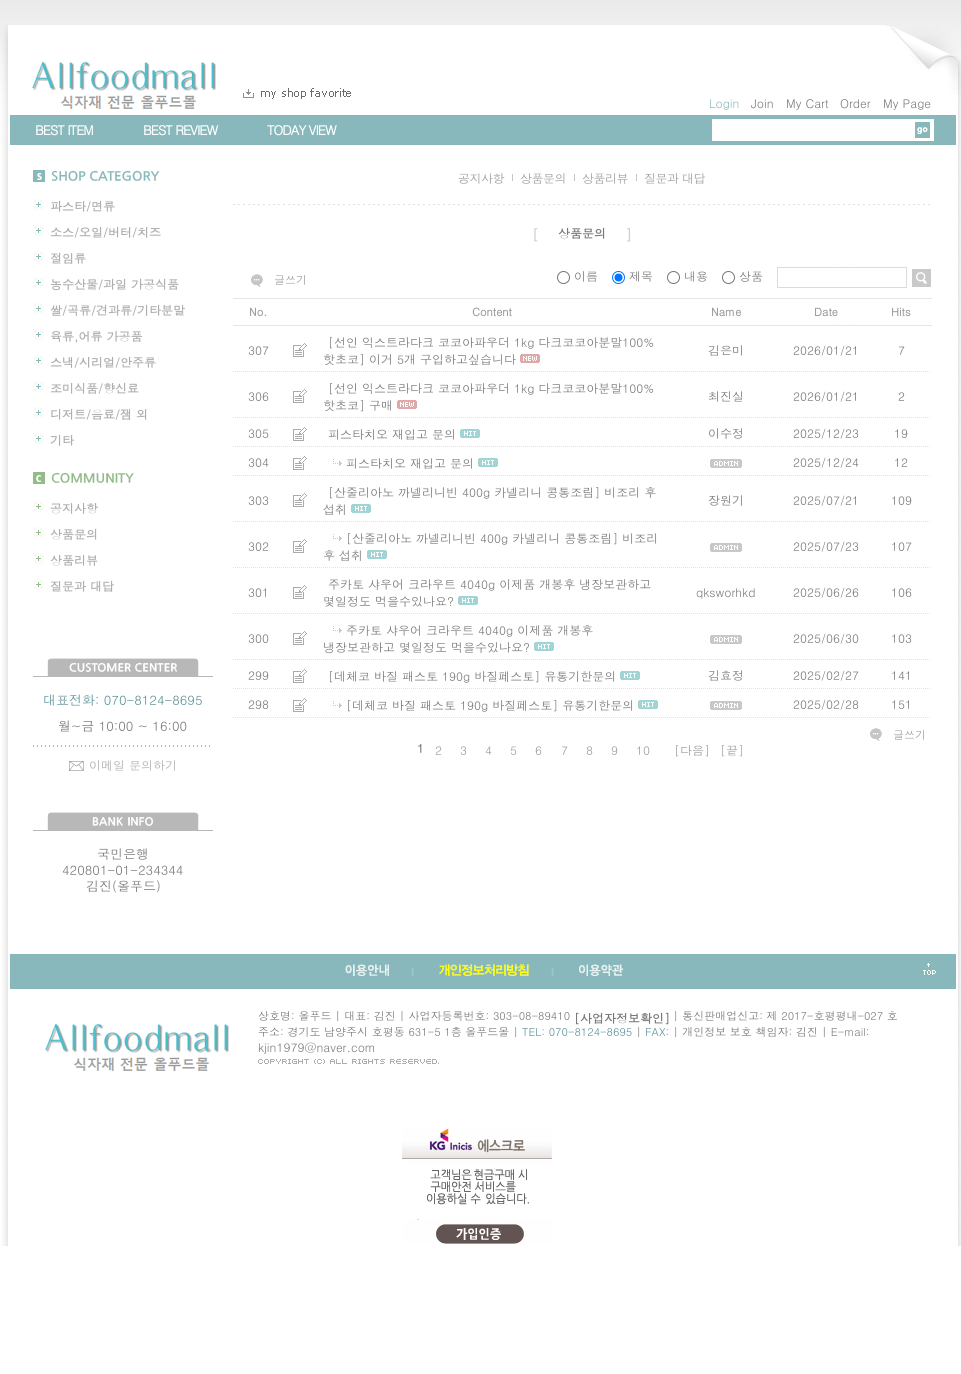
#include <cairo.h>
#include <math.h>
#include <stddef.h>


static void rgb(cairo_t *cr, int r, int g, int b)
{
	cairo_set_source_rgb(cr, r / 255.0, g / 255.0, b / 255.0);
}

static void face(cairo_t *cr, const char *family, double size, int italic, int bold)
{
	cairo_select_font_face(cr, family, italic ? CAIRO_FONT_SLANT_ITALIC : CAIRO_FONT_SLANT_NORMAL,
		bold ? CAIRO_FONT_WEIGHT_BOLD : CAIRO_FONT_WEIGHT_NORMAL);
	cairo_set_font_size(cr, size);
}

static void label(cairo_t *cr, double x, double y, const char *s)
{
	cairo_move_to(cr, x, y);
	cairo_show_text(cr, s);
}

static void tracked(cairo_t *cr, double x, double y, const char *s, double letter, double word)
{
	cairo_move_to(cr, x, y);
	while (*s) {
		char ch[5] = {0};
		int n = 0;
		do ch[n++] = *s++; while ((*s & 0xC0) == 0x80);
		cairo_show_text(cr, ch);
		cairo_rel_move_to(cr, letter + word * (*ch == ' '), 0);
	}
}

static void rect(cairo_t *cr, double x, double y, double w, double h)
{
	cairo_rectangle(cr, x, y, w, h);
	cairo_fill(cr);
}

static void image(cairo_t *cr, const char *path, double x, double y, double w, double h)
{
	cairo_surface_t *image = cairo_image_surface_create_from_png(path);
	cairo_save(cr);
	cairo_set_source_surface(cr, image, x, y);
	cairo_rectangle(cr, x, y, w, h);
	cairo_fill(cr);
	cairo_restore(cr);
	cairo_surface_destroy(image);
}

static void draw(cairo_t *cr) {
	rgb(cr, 255, 255, 255);
	cairo_paint(cr);
	image(cr, "image0.png", 0, 0, 961, 25);
	image(cr, "image1.png", 0, 95, 961, 50);
	image(cr, "image2.png", 0, 25, 961, 70);
	image(cr, "image3.png", 32, 61, 184, 48);
	image(cr, "image4.png", 243, 88, 108, 11);
	face(cr, "Dotum", 12, 0, 0);
	rgb(cr, 136, 184, 186);
	label(cr, 709, 108, "Login");
	rgb(cr, 120, 120, 120);
	label(cr, 751, 108, "Join");
	label(cr, 786, 108, "My Cart");
	label(cr, 840, 108, "Order");
	label(cr, 883, 108, "My Page");
	rgb(cr, 136, 184, 188);
	rect(cr, 10, 115, 946, 30);
	face(cr, "Dotum", 13, 0, 1);
	rgb(cr, 255, 255, 255);
	tracked(cr, 35, 135, "BEST ITEM", -1, 0);
	tracked(cr, 143, 135, "BEST REVIEW", -1, 0);
	tracked(cr, 267, 135, "TODAY VIEW", -1, 0);
	rect(cr, 712, 119, 222, 22);
	image(cr, "image5.png", 915, 122, 15, 16);
	image(cr, "image6.png", 2, 145, 959, 809);
	image(cr, "image7.png", 33, 170, 127, 12);
	image(cr, "image8.png", 33, 199, 11, 11);
	face(cr, "Dotum", 12, 0, 1);
	rgb(cr, 174, 174, 174);
	label(cr, 50, 211, "파스타/면류");
	image(cr, "image8.png", 33, 225, 11, 11);
	label(cr, 50, 237, "소스/오일/버터/치즈");
	image(cr, "image8.png", 33, 251, 11, 11);
	label(cr, 50, 263, "절임류");
	image(cr, "image8.png", 33, 277, 11, 11);
	label(cr, 50, 289, "농수산물/과일 가공식품");
	image(cr, "image8.png", 33, 303, 11, 11);
	label(cr, 50, 315, "쌀/곡류/견과류/기타분말");
	image(cr, "image8.png", 33, 329, 11, 11);
	label(cr, 50, 341, "육류,어류 가공품");
	image(cr, "image8.png", 33, 355, 11, 11);
	label(cr, 50, 367, "스낵/시리얼/안주류");
	image(cr, "image8.png", 33, 381, 11, 11);
	label(cr, 50, 393, "조미식품/향신료");
	image(cr, "image8.png", 33, 407, 11, 11);
	label(cr, 50, 419, "디저트/음료/잼 외");
	image(cr, "image8.png", 33, 433, 11, 11);
	label(cr, 50, 445, "기타");
	image(cr, "image9.png", 33, 472, 101, 12);
	image(cr, "image10.png", 34, 501, 10, 11);
	label(cr, 50, 513, "공지사항");
	image(cr, "image10.png", 34, 527, 10, 11);
	label(cr, 50, 539, "상품문의");
	image(cr, "image10.png", 34, 553, 10, 11);
	label(cr, 50, 565, "상품리뷰");
	image(cr, "image10.png", 34, 579, 10, 11);
	label(cr, 50, 591, "질문과 대답");
	rgb(cr, 184, 184, 184);
	rect(cr, 33, 676, 180, 1);
	image(cr, "image11.png", 47, 658, 152, 18);
	face(cr, "Dotum", 13, 0, 0);
	rgb(cr, 91, 146, 151);
	label(cr, 43, 705, "대표전화: 070-8124-8695");
	rgb(cr, 120, 120, 120);
	label(cr, 58, 731, "월~금 10:00 ~ 16:00");
	image(cr, "image12.png", 33, 745, 177, 2);
	image(cr, "image13.png", 69, 761, 15, 10);
	face(cr, "Dotum", 12, 0, 0);
	rgb(cr, 174, 174, 174);
	label(cr, 89, 770, "이메일 문의하기");
	rgb(cr, 184, 184, 184);
	rect(cr, 33, 830, 180, 1);
	image(cr, "image14.png", 47, 812, 152, 18);
	face(cr, "Dotum", 13, 0, 0);
	rgb(cr, 120, 120, 120);
	label(cr, 97, 859, "국민은행");
	label(cr, 62, 875, "420801-01-234344");
	label(cr, 86, 891, "김진(올푸드)");
	image(cr, "image15.png", 233, 204, 697, 1);
	face(cr, "Dotum", 12, 0, 0);
	rgb(cr, 156, 156, 156);
	tracked(cr, 458, 183, "공지사항", -0.5, 0);
	tracked(cr, 520, 183, "상품문의", -0.5, 0);
	rgb(cr, 197, 197, 197);
	rect(cr, 512, 174, 1, 7);
	rgb(cr, 156, 156, 156);
	tracked(cr, 582, 183, "상품리뷰", -0.5, 0);
	rgb(cr, 197, 197, 197);
	rect(cr, 574, 174, 1, 7);
	rgb(cr, 156, 156, 156);
	tracked(cr, 644, 183, "질문과 대답", -0.5, 0);
	rgb(cr, 197, 197, 197);
	rect(cr, 636, 174, 1, 7);
	face(cr, "Dotum", 14, 0, 1);
	rgb(cr, 207, 207, 207);
	label(cr, 532, 240, "[");
	face(cr, "Dotum", 12, 0, 1);
	rgb(cr, 120, 120, 120);
	label(cr, 558, 238, "상품문의");
	face(cr, "Dotum", 14, 0, 1);
	rgb(cr, 207, 207, 207);
	label(cr, 625, 240, "]");
	image(cr, "image16.png", 251, 274, 12, 13);
	face(cr, "Dotum", 11, 0, 0);
	rgb(cr, 156, 156, 156);
	label(cr, 274, 284, "글쓰기");
	cairo_new_path(cr);
	cairo_arc(cr, 563.5, 277.5, 6, 0, 2 * M_PI);
	rgb(cr, 118, 118, 118);
	cairo_set_line_width(cr, 1);
	cairo_stroke(cr);
	face(cr, "Dotum", 12, 0, 0);
	rgb(cr, 120, 120, 120);
	label(cr, 574, 281, "이름");
	cairo_new_path(cr);
	cairo_arc(cr, 618.5, 277.5, 6, 0, 2 * M_PI);
	rgb(cr, 0, 117, 255);
	cairo_stroke(cr);
	cairo_arc(cr, 618.5, 277.5, 4, 0, 2 * M_PI);
	cairo_fill(cr);
	rgb(cr, 120, 120, 120);
	label(cr, 629, 281, "제목");
	cairo_new_path(cr);
	cairo_arc(cr, 673.5, 277.5, 6, 0, 2 * M_PI);
	rgb(cr, 118, 118, 118);
	cairo_stroke(cr);
	rgb(cr, 120, 120, 120);
	label(cr, 684, 281, "내용");
	cairo_new_path(cr);
	cairo_arc(cr, 728.5, 277.5, 6, 0, 2 * M_PI);
	rgb(cr, 118, 118, 118);
	cairo_stroke(cr);
	rgb(cr, 120, 120, 120);
	label(cr, 739, 281, "상품");
	rgb(cr, 255, 255, 255);
	rect(cr, 780, 284, 71, 1);
	cairo_rectangle(cr, 777.5, 267.5, 129, 20);
	rgb(cr, 220, 220, 220);
	cairo_stroke(cr);
	image(cr, "image17.png", 912, 269, 19, 18);
	face(cr, "Dotum", 11, 0, 1);
	rgb(cr, 156, 156, 156);
	label(cr, 249, 316, "No.");
	label(cr, 472, 316, "Content");
	label(cr, 711, 316, "Name");
	label(cr, 814, 316, "Date");
	rgb(cr, 229, 229, 229);
	rect(cr, 233, 298, 699, 1);
	rect(cr, 233, 325, 699, 1);
	rgb(cr, 156, 156, 156);
	label(cr, 891, 316, "Hits");
	image(cr, "image18.png", 233, 371, 49, 1);
	face(cr, "Dotum", 12, 0, 0);
	rgb(cr, 120, 120, 120);
	label(cr, 248, 355, "307");
	image(cr, "image19.png", 283, 371, 29, 1);
	image(cr, "image20.png", 293, 343, 14, 14);
	image(cr, "image21.png", 313, 371, 357, 1);
	label(cr, 328, 347, "[선인 익스트라다크 코코아파우더 1kg 다크코코아분말100%");
	label(cr, 323, 364, "핫초코] 이거 5개 구입하고싶습니다");
	image(cr, "image22.png", 520, 354, 20, 9);
	image(cr, "image23.png", 671, 371, 109, 1);
	label(cr, 708, 355, "김은미");
	image(cr, "image24.png", 781, 371, 89, 1);
	label(cr, 793, 355, "2026/01/21");
	image(cr, "image25.png", 871, 371, 59, 1);
	label(cr, 898, 355, "7");
	image(cr, "image18.png", 233, 417, 49, 1);
	label(cr, 248, 401, "306");
	image(cr, "image19.png", 283, 417, 29, 1);
	image(cr, "image20.png", 293, 389, 14, 14);
	image(cr, "image21.png", 313, 417, 357, 1);
	label(cr, 328, 393, "[선인 익스트라다크 코코아파우더 1kg 다크코코아분말100%");
	label(cr, 323, 410, "핫초코] 구매");
	image(cr, "image22.png", 397, 400, 20, 9);
	image(cr, "image23.png", 671, 417, 109, 1);
	label(cr, 708, 401, "최진실");
	image(cr, "image24.png", 781, 417, 89, 1);
	label(cr, 793, 401, "2026/01/21");
	image(cr, "image25.png", 871, 417, 59, 1);
	label(cr, 898, 401, "2");
	image(cr, "image18.png", 233, 446, 49, 1);
	label(cr, 248, 438, "305");
	image(cr, "image19.png", 283, 446, 29, 1);
	image(cr, "image20.png", 293, 427, 14, 14);
	image(cr, "image21.png", 313, 446, 357, 1);
	label(cr, 328, 439, "피스타치오 재입고 문의");
	image(cr, "image26.png", 460, 429, 20, 9);
	image(cr, "image23.png", 671, 446, 109, 1);
	label(cr, 708, 438, "이수정");
	image(cr, "image24.png", 781, 446, 89, 1);
	label(cr, 793, 438, "2025/12/23");
	image(cr, "image25.png", 871, 446, 59, 1);
	label(cr, 894, 438, "19");
	image(cr, "image18.png", 233, 475, 49, 1);
	label(cr, 248, 467, "304");
	image(cr, "image19.png", 283, 475, 29, 1);
	image(cr, "image20.png", 293, 456, 14, 14);
	image(cr, "image21.png", 313, 475, 357, 1);
	image(cr, "image27.png", 333, 459, 9, 7);
	label(cr, 346, 468, "피스타치오 재입고 문의");
	image(cr, "image26.png", 478, 458, 20, 9);
	image(cr, "image23.png", 671, 475, 109, 1);
	image(cr, "image28.png", 710, 459, 32, 9);
	image(cr, "image24.png", 781, 475, 89, 1);
	label(cr, 793, 467, "2025/12/24");
	image(cr, "image25.png", 871, 475, 59, 1);
	label(cr, 894, 467, "12");
	image(cr, "image18.png", 233, 521, 49, 1);
	label(cr, 248, 505, "303");
	image(cr, "image19.png", 283, 521, 29, 1);
	image(cr, "image20.png", 293, 493, 14, 14);
	image(cr, "image21.png", 313, 521, 357, 1);
	label(cr, 328, 497, "[산줄리아노 까넬리니빈 400g 카넬리니 콩통조림] 비조리 후");
	label(cr, 323, 514, "섭취");
	image(cr, "image26.png", 351, 504, 20, 9);
	image(cr, "image23.png", 671, 521, 109, 1);
	label(cr, 708, 505, "장원기");
	image(cr, "image24.png", 781, 521, 89, 1);
	label(cr, 793, 505, "2025/07/21");
	image(cr, "image25.png", 871, 521, 59, 1);
	label(cr, 891, 505, "109");
	image(cr, "image18.png", 233, 567, 49, 1);
	label(cr, 248, 551, "302");
	image(cr, "image19.png", 283, 567, 29, 1);
	image(cr, "image20.png", 293, 539, 14, 14);
	image(cr, "image21.png", 313, 567, 357, 1);
	image(cr, "image27.png", 333, 534, 9, 7);
	label(cr, 346, 543, "[산줄리아노 까넬리니빈 400g 카넬리니 콩통조림] 비조리");
	label(cr, 323, 560, "후 섭취");
	image(cr, "image26.png", 367, 550, 20, 9);
	image(cr, "image23.png", 671, 567, 109, 1);
	image(cr, "image28.png", 710, 543, 32, 9);
	image(cr, "image24.png", 781, 567, 89, 1);
	label(cr, 793, 551, "2025/07/23");
	image(cr, "image25.png", 871, 567, 59, 1);
	label(cr, 891, 551, "107");
	image(cr, "image18.png", 233, 613, 49, 1);
	label(cr, 248, 597, "301");
	image(cr, "image19.png", 283, 613, 29, 1);
	image(cr, "image20.png", 293, 585, 14, 14);
	image(cr, "image21.png", 313, 613, 357, 1);
	label(cr, 328, 589, "주카토 샤우어 크라우트 4040g 이제품 개봉후 냉장보관하고");
	label(cr, 323, 606, "몇일정도 먹을수있나요?");
	image(cr, "image26.png", 458, 596, 20, 9);
	image(cr, "image23.png", 671, 613, 109, 1);
	label(cr, 696, 597, "qksworhkd");
	image(cr, "image24.png", 781, 613, 89, 1);
	label(cr, 793, 597, "2025/06/26");
	image(cr, "image25.png", 871, 613, 59, 1);
	label(cr, 891, 597, "106");
	image(cr, "image18.png", 233, 659, 49, 1);
	label(cr, 248, 643, "300");
	image(cr, "image19.png", 283, 659, 29, 1);
	image(cr, "image20.png", 293, 631, 14, 14);
	image(cr, "image21.png", 313, 659, 357, 1);
	image(cr, "image27.png", 333, 626, 9, 7);
	label(cr, 346, 635, "주카토 샤우어 크라우트 4040g 이제품 개봉후");
	label(cr, 323, 652, "냉장보관하고 몇일정도 먹을수있나요?");
	image(cr, "image26.png", 534, 642, 20, 9);
	image(cr, "image23.png", 671, 659, 109, 1);
	image(cr, "image28.png", 710, 635, 32, 9);
	image(cr, "image24.png", 781, 659, 89, 1);
	label(cr, 793, 643, "2025/06/30");
	image(cr, "image25.png", 871, 659, 59, 1);
	label(cr, 891, 643, "103");
	image(cr, "image18.png", 233, 688, 49, 1);
	label(cr, 248, 680, "299");
	image(cr, "image19.png", 283, 688, 29, 1);
	image(cr, "image20.png", 293, 669, 14, 14);
	image(cr, "image21.png", 313, 688, 357, 1);
	label(cr, 328, 681, "[데체코 바질 패스토 190g 바질페스토] 유통기한문의");
	image(cr, "image26.png", 620, 671, 20, 9);
	image(cr, "image23.png", 671, 688, 109, 1);
	label(cr, 708, 680, "김효정");
	image(cr, "image24.png", 781, 688, 89, 1);
	label(cr, 793, 680, "2025/02/27");
	image(cr, "image25.png", 871, 688, 59, 1);
	label(cr, 891, 680, "141");
	image(cr, "image18.png", 233, 717, 49, 1);
	label(cr, 248, 709, "298");
	image(cr, "image19.png", 283, 717, 29, 1);
	image(cr, "image20.png", 293, 698, 14, 14);
	image(cr, "image21.png", 313, 717, 357, 1);
	image(cr, "image27.png", 333, 701, 9, 7);
	label(cr, 346, 710, "[데체코 바질 패스토 190g 바질페스토] 유통기한문의");
	image(cr, "image26.png", 638, 700, 20, 9);
	image(cr, "image23.png", 671, 717, 109, 1);
	image(cr, "image28.png", 710, 701, 32, 9);
	image(cr, "image24.png", 781, 717, 89, 1);
	label(cr, 793, 709, "2025/02/28");
	image(cr, "image25.png", 871, 717, 59, 1);
	label(cr, 891, 709, "151");
	image(cr, "image16.png", 870, 728, 12, 13);
	face(cr, "Dotum", 11, 0, 0);
	rgb(cr, 156, 156, 156);
	label(cr, 893, 739, "글쓰기");
	face(cr, "Dotum", 12, 0, 1);
	rgb(cr, 120, 120, 120);
	label(cr, 417, 753, "1");
	face(cr, "Dotum", 12, 0, 0);
	rgb(cr, 156, 156, 156);
	label(cr, 435, 755, "2");
	label(cr, 460, 755, "3");
	label(cr, 485, 755, "4");
	label(cr, 510, 755, "5");
	label(cr, 535, 755, "6");
	label(cr, 561, 755, "7");
	label(cr, 586, 755, "8");
	label(cr, 611, 755, "9");
	label(cr, 636, 755, "10");
	label(cr, 674, 755, "[다음]");
	label(cr, 720, 755, "[끝]");
	image(cr, "image29.png", 2, 954, 959, 292);
	rgb(cr, 136, 184, 188);
	rect(cr, 10, 954, 946, 35);
	image(cr, "image30.png", 411, 968, 3, 9);
	image(cr, "image31.png", 345, 964, 44, 12);
	image(cr, "image30.png", 551, 968, 3, 9);
	image(cr, "image32.png", 439, 964, 90, 12);
	image(cr, "image33.png", 579, 964, 45, 12);
	image(cr, "image34.png", 923, 963, 13, 12);
	image(cr, "image3.png", 45, 1023, 184, 48);
	face(cr, "Dotum", 11, 0, 0);
	rgb(cr, 120, 120, 120);
	label(cr, 258, 1020, "상호명: 올푸드 | 대표: 김진 | 사업자등록번호: 303-08-89410");
	face(cr, "Dotum", 12, 0, 1);
	label(cr, 574, 1023, "[사업자정보확인]");
	face(cr, "Dotum", 11, 0, 0);
	label(cr, 673, 1020, "| 통신판매업신고: 제 2017-호평평내-027 호");
	label(cr, 258, 1036, "주소: 경기도 남양주시 호평동 631-5 1층 올푸드몰 |");
	rgb(cr, 91, 146, 151);
	label(cr, 522, 1036, "TEL: 070-8124-8695");
	rgb(cr, 120, 120, 120);
	label(cr, 636, 1036, "|");
	rgb(cr, 91, 146, 151);
	label(cr, 645, 1036, "FAX:");
	rgb(cr, 120, 120, 120);
	label(cr, 673, 1036, "| 개인정보 보호 책임자: 김진 | E-mail:");
	face(cr, "Dotum", 12, 0, 0);
	label(cr, 258, 1052, "kjin1979@naver.com");
	image(cr, "image35.png", 258, 1059, 181, 5);
	image(cr, "image36.png", 402, 1128, 150, 116);
}

int main(void) {
	cairo_surface_t *surface = cairo_image_surface_create(CAIRO_FORMAT_RGB24, 961, 1374);
	cairo_t *cr = cairo_create(surface);
	cairo_font_options_t *options = cairo_font_options_create();
	cairo_font_options_set_hint_metrics(options, CAIRO_HINT_METRICS_OFF);
	cairo_font_options_set_hint_style(options, CAIRO_HINT_STYLE_NONE);
	cairo_set_font_options(cr, options);
	cairo_set_miter_limit(cr, 4);
	draw(cr);
	cairo_surface_write_to_png(surface, "render.png");
	cairo_font_options_destroy(options);
	cairo_destroy(cr);
	cairo_surface_destroy(surface);
	return 0;
}
